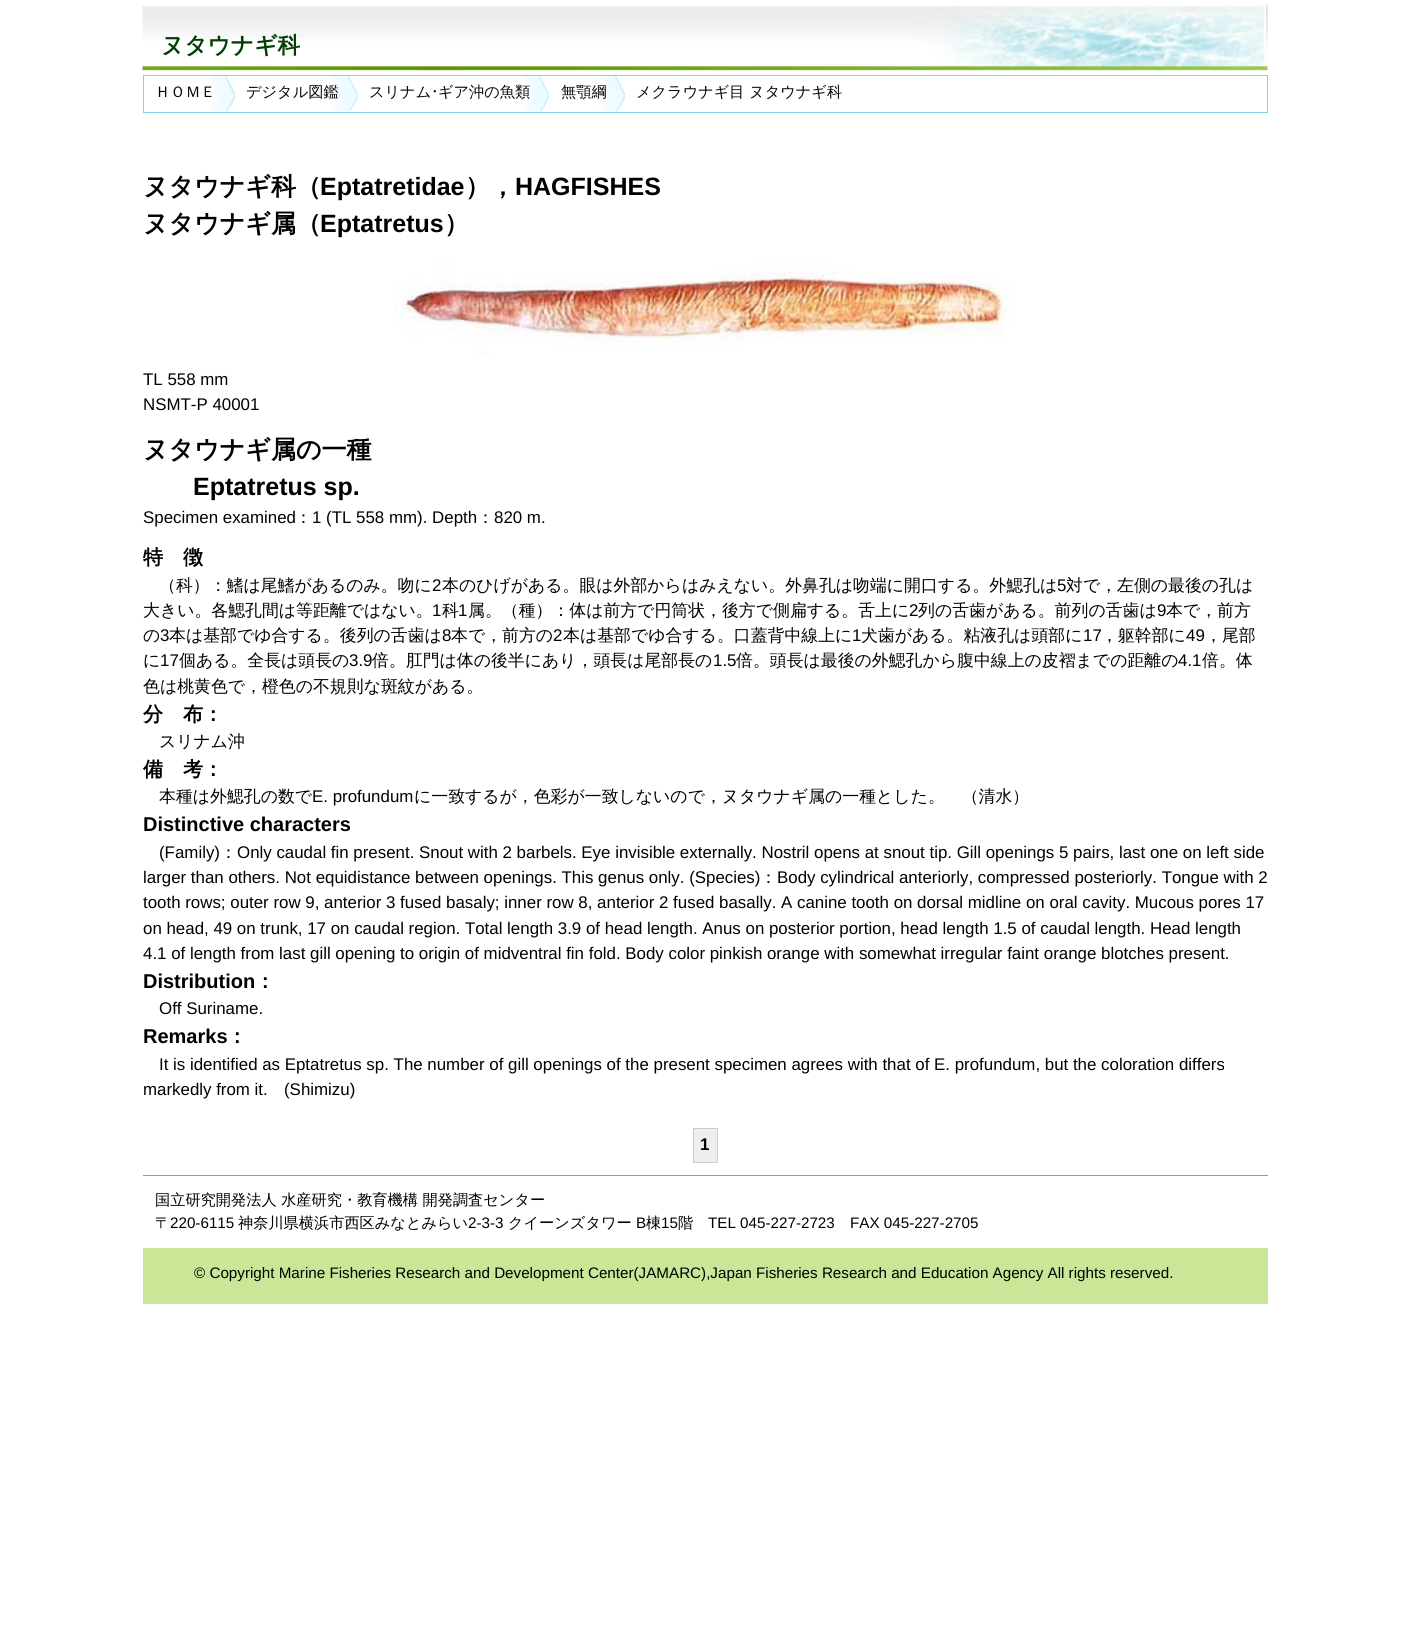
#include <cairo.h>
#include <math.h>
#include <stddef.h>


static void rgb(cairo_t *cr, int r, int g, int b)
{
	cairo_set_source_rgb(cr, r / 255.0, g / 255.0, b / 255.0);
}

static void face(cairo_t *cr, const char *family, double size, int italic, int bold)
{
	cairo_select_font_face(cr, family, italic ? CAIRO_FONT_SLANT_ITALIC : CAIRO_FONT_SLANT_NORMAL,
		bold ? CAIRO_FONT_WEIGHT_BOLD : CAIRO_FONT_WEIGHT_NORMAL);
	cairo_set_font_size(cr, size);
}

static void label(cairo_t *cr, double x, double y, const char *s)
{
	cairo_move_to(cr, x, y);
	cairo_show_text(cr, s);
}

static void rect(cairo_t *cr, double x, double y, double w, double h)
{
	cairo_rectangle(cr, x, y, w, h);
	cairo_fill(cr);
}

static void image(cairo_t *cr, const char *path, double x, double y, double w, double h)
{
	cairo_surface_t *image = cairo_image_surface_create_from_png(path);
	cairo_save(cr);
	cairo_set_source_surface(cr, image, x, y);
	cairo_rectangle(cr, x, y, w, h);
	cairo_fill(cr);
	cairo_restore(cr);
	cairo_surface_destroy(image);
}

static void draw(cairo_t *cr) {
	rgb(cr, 255, 255, 255);
	cairo_paint(cr);
	image(cr, "image0.png", 142, 4, 1126, 68);
	face(cr, "WenQuanYi Zen Hei", 22.75, 0, 1);
	rgb(cr, 0, 65, 0);
	label(cr, 161, 53, "ヌタウナギ科");
	cairo_rectangle(cr, 143.5, 75.5, 1124, 37);
	rgb(cr, 135, 206, 235);
	cairo_set_line_width(cr, 1);
	cairo_stroke(cr);
	image(cr, "image1.png", 209, 76, 26, 36);
	face(cr, "WenQuanYi Zen Hei Medium", 15.2, 0, 0);
	rgb(cr, 7, 7, 7);
	label(cr, 155, 97, "ＨＯＭＥ");
	image(cr, "image2.png", 332, 76, 26, 36);
	label(cr, 246, 97, "デジタル図鑑");
	image(cr, "image3.png", 523, 76, 26, 36);
	label(cr, 369, 97, "スリナム");
	face(cr, "IPAPGothic", 15.2, 0, 0);
	label(cr, 431, 97, "･");
	face(cr, "WenQuanYi Zen Hei Medium", 15.2, 0, 0);
	label(cr, 438, 97, "ギア沖の魚類");
	image(cr, "image4.png", 599, 76, 26, 36);
	label(cr, 561, 97, "無顎綱");
	label(cr, 636, 97, "メクラウナギ目 ヌタウナギ科");
	face(cr, "WenQuanYi Zen Hei", 25, 0, 1);
	rgb(cr, 0, 0, 0);
	label(cr, 143, 195, "ヌタウナギ科（");
	face(cr, "Liberation Sans", 25, 0, 1);
	label(cr, 320, 195, "Eptatretidae");
	face(cr, "WenQuanYi Zen Hei", 25, 0, 1);
	label(cr, 465, 195, "），");
	face(cr, "Liberation Sans", 25, 0, 1);
	label(cr, 515, 195, "HAGFISHES");
	face(cr, "WenQuanYi Zen Hei", 25, 0, 1);
	label(cr, 143, 232, "ヌタウナギ属（");
	face(cr, "Liberation Sans", 25, 0, 1);
	label(cr, 320, 232, "Eptatretus");
	face(cr, "WenQuanYi Zen Hei", 25, 0, 1);
	label(cr, 444, 232, "）");
	image(cr, "image5.png", 393, 262, 621, 94);
	face(cr, "Liberation Sans", 16.88, 0, 0);
	label(cr, 143, 385, "TL 558 mm");
	label(cr, 143, 410, "NSMT-P 40001");
	face(cr, "WenQuanYi Zen Hei", 25, 0, 1);
	label(cr, 143, 458, "ヌタウナギ属の一種");
	face(cr, "Liberation Sans", 25, 0, 1);
	label(cr, 193, 495, "Eptatretus sp.");
	face(cr, "Liberation Sans", 16.88, 0, 0);
	label(cr, 143, 523, "Specimen examined");
	face(cr, "WenQuanYi Zen Hei Medium", 16.88, 0, 0);
	label(cr, 295, 523, "：");
	face(cr, "Liberation Sans", 16.88, 0, 0);
	label(cr, 312, 523, "1 (TL 558 mm). Depth");
	face(cr, "WenQuanYi Zen Hei Medium", 16.88, 0, 0);
	label(cr, 477, 523, "：");
	face(cr, "Liberation Sans", 16.88, 0, 0);
	label(cr, 494, 523, "820 m.");
	face(cr, "WenQuanYi Zen Hei", 20, 0, 1);
	label(cr, 143, 564, "特　徴");
	face(cr, "WenQuanYi Zen Hei Medium", 16.88, 0, 0);
	label(cr, 159, 591, "（科）：鰭は尾鰭があるのみ。吻に");
	face(cr, "Liberation Sans", 16.88, 0, 0);
	label(cr, 432, 591, "2");
	face(cr, "WenQuanYi Zen Hei Medium", 16.88, 0, 0);
	label(cr, 442, 591, "本のひげがある。眼は外部からはみえない。外鼻孔は吻端に開口する。外鰓孔は");
	face(cr, "Liberation Sans", 16.88, 0, 0);
	label(cr, 1057, 591, "5");
	face(cr, "WenQuanYi Zen Hei Medium", 16.88, 0, 0);
	label(cr, 1066, 591, "対で，左側の最後の孔は");
	label(cr, 143, 616, "大きい。各鰓孔間は等距離ではない。");
	face(cr, "Liberation Sans", 16.88, 0, 0);
	label(cr, 432, 616, "1");
	face(cr, "WenQuanYi Zen Hei Medium", 16.88, 0, 0);
	label(cr, 442, 616, "科");
	face(cr, "Liberation Sans", 16.88, 0, 0);
	label(cr, 458, 616, "1");
	face(cr, "WenQuanYi Zen Hei Medium", 16.88, 0, 0);
	label(cr, 468, 616, "属。（種）：体は前方で円筒状，後方で側扁する。舌上に");
	face(cr, "Liberation Sans", 16.88, 0, 0);
	label(cr, 909, 616, "2");
	face(cr, "WenQuanYi Zen Hei Medium", 16.88, 0, 0);
	label(cr, 918, 616, "列の舌歯がある。前列の舌歯は");
	face(cr, "Liberation Sans", 16.88, 0, 0);
	label(cr, 1157, 616, "9");
	face(cr, "WenQuanYi Zen Hei Medium", 16.88, 0, 0);
	label(cr, 1166, 616, "本で，前方");
	label(cr, 143, 641, "の");
	face(cr, "Liberation Sans", 16.88, 0, 0);
	label(cr, 160, 641, "3");
	face(cr, "WenQuanYi Zen Hei Medium", 16.88, 0, 0);
	label(cr, 169, 641, "本は基部でゆ合する。後列の舌歯は");
	face(cr, "Liberation Sans", 16.88, 0, 0);
	label(cr, 442, 641, "8");
	face(cr, "WenQuanYi Zen Hei Medium", 16.88, 0, 0);
	label(cr, 451, 641, "本で，前方の");
	face(cr, "Liberation Sans", 16.88, 0, 0);
	label(cr, 553, 641, "2");
	face(cr, "WenQuanYi Zen Hei Medium", 16.88, 0, 0);
	label(cr, 563, 641, "本は基部でゆ合する。口蓋背中線上に");
	face(cr, "Liberation Sans", 16.88, 0, 0);
	label(cr, 852, 641, "1");
	face(cr, "WenQuanYi Zen Hei Medium", 16.88, 0, 0);
	label(cr, 861, 641, "犬歯がある。粘液孔は頭部に");
	face(cr, "Liberation Sans", 16.88, 0, 0);
	label(cr, 1083, 641, "17");
	face(cr, "WenQuanYi Zen Hei Medium", 16.88, 0, 0);
	label(cr, 1101, 641, "，躯幹部に");
	face(cr, "Liberation Sans", 16.88, 0, 0);
	label(cr, 1186, 641, "49");
	face(cr, "WenQuanYi Zen Hei Medium", 16.88, 0, 0);
	label(cr, 1205, 641, "，尾部");
	label(cr, 143, 666, "に");
	face(cr, "Liberation Sans", 16.88, 0, 0);
	label(cr, 160, 666, "17");
	face(cr, "WenQuanYi Zen Hei Medium", 16.88, 0, 0);
	label(cr, 179, 666, "個ある。全長は頭長の");
	face(cr, "Liberation Sans", 16.88, 0, 0);
	label(cr, 349, 666, "3.9");
	face(cr, "WenQuanYi Zen Hei Medium", 16.88, 0, 0);
	label(cr, 372, 666, "倍。肛門は体の後半にあり，頭長は尾部長の");
	face(cr, "Liberation Sans", 16.88, 0, 0);
	label(cr, 713, 666, "1.5");
	face(cr, "WenQuanYi Zen Hei Medium", 16.88, 0, 0);
	label(cr, 736, 666, "倍。頭長は最後の外鰓孔から腹中線上の皮褶までの距離の");
	face(cr, "Liberation Sans", 16.88, 0, 0);
	label(cr, 1178, 666, "4.1");
	face(cr, "WenQuanYi Zen Hei Medium", 16.88, 0, 0);
	label(cr, 1202, 666, "倍。体");
	label(cr, 143, 692, "色は桃黄色で，橙色の不規則な斑紋がある。");
	face(cr, "WenQuanYi Zen Hei", 20, 0, 1);
	label(cr, 143, 721, "分　布：");
	face(cr, "WenQuanYi Zen Hei Medium", 16.88, 0, 0);
	label(cr, 159, 747, "スリナム沖");
	face(cr, "WenQuanYi Zen Hei", 20, 0, 1);
	label(cr, 143, 776, "備　考：");
	face(cr, "WenQuanYi Zen Hei Medium", 16.88, 0, 0);
	label(cr, 159, 802, "本種は外鰓孔の数で");
	face(cr, "Liberation Sans", 16.88, 0, 0);
	label(cr, 312, 802, "E. profundum");
	face(cr, "WenQuanYi Zen Hei Medium", 16.88, 0, 0);
	label(cr, 414, 802, "に一致するが，色彩が一致しないので，ヌタウナギ属の一種とした。　（清水）");
	face(cr, "Liberation Sans", 20, 0, 1);
	label(cr, 143, 831, "Distinctive characters");
	face(cr, "Liberation Sans", 16.88, 0, 0);
	label(cr, 159, 858, "(Family)");
	face(cr, "WenQuanYi Zen Hei Medium", 16.88, 0, 0);
	label(cr, 220, 858, "：");
	face(cr, "Liberation Sans", 16.88, 0, 0);
	label(cr, 237, 858, "Only caudal fin present. Snout with 2 barbels. Eye invisible externally. Nostril opens at snout tip. Gill openings 5 pairs, last one on left side");
	label(cr, 143, 883, "larger than others. Not equidistance between openings. This genus only. (Species)");
	face(cr, "WenQuanYi Zen Hei Medium", 16.88, 0, 0);
	label(cr, 760, 883, "：");
	face(cr, "Liberation Sans", 16.88, 0, 0);
	label(cr, 777, 883, "Body cylindrical anteriorly, compressed posteriorly. Tongue with 2");
	label(cr, 143, 908, "tooth rows; outer row 9, anterior 3 fused basaly; inner row 8, anterior 2 fused basally. A canine tooth on dorsal midline on oral cavity. Mucous pores 17");
	label(cr, 143, 934, "on head, 49 on trunk, 17 on caudal region. Total length 3.9 of head length. Anus on posterior portion, head length 1.5 of caudal length. Head length");
	label(cr, 143, 959, "4.1 of length from last gill opening to origin of midventral fin fold. Body color pinkish orange with somewhat irregular faint orange blotches present.");
	face(cr, "Liberation Sans", 20, 0, 1);
	label(cr, 143, 988, "Distribution");
	face(cr, "WenQuanYi Zen Hei", 20, 0, 1);
	label(cr, 255, 988, "：");
	face(cr, "Liberation Sans", 16.88, 0, 0);
	label(cr, 159, 1014, "Off Suriname.");
	face(cr, "Liberation Sans", 20, 0, 1);
	label(cr, 143, 1043, "Remarks");
	face(cr, "WenQuanYi Zen Hei", 20, 0, 1);
	label(cr, 227, 1043, "：");
	face(cr, "Liberation Sans", 16.88, 0, 0);
	label(cr, 159, 1070, "It is identified as Eptatretus sp. The number of gill openings of the present specimen agrees with that of E. profundum, but the coloration differs");
	label(cr, 143, 1095, "markedly from it.");
	label(cr, 284, 1095, "(Shimizu)");
	rgb(cr, 238, 238, 238);
	cairo_rectangle(cr, 693.5, 1128.5, 24, 34);
	cairo_fill_preserve(cr);
	rgb(cr, 204, 204, 204);
	cairo_stroke(cr);
	face(cr, "Liberation Sans", 16.88, 0, 1);
	rgb(cr, 0, 0, 0);
	label(cr, 700, 1150, "1");
	rgb(cr, 153, 153, 153);
	rect(cr, 143, 1175, 1125, 1);
	face(cr, "WenQuanYi Zen Hei Medium", 15.2, 0, 0);
	rgb(cr, 0, 0, 0);
	label(cr, 155, 1205, "国立研究開発法人 水産研究・教育機構 開発調査センター");
	label(cr, 155, 1228, "〒");
	face(cr, "Liberation Sans", 15.2, 0, 0);
	label(cr, 170, 1228, "220-6115");
	face(cr, "WenQuanYi Zen Hei Medium", 15.2, 0, 0);
	label(cr, 238, 1228, "神奈川県横浜市西区みなとみらい");
	face(cr, "Liberation Sans", 15.2, 0, 0);
	label(cr, 468, 1228, "2-3-3");
	face(cr, "WenQuanYi Zen Hei Medium", 15.2, 0, 0);
	label(cr, 508, 1228, "クイーンズタワー");
	face(cr, "Liberation Sans", 15.2, 0, 0);
	label(cr, 636, 1228, "B");
	face(cr, "WenQuanYi Zen Hei Medium", 15.2, 0, 0);
	label(cr, 646, 1228, "棟");
	face(cr, "Liberation Sans", 15.2, 0, 0);
	label(cr, 661, 1228, "15");
	face(cr, "WenQuanYi Zen Hei Medium", 15.2, 0, 0);
	label(cr, 678, 1228, "階");
	face(cr, "Liberation Sans", 15.2, 0, 0);
	label(cr, 708, 1228, "TEL 045-227-2723");
	label(cr, 850, 1228, "FAX 045-227-2705");
	rgb(cr, 202, 230, 151);
	rect(cr, 143, 1248, 1125, 56);
	rgb(cr, 0, 0, 0);
	label(cr, 194, 1278, "© Copyright Marine Fisheries Research and Development Center(JAMARC),Japan Fisheries Research and Education Agency All rights reserved.");
}

int main(void) {
	cairo_surface_t *surface = cairo_image_surface_create(CAIRO_FORMAT_RGB24, 1410, 1640);
	cairo_t *cr = cairo_create(surface);
	cairo_font_options_t *options = cairo_font_options_create();
	cairo_font_options_set_hint_metrics(options, CAIRO_HINT_METRICS_OFF);
	cairo_font_options_set_hint_style(options, CAIRO_HINT_STYLE_NONE);
	cairo_set_font_options(cr, options);
	cairo_set_miter_limit(cr, 4);
	draw(cr);
	cairo_surface_write_to_png(surface, "render.png");
	cairo_font_options_destroy(options);
	cairo_destroy(cr);
	cairo_surface_destroy(surface);
	return 0;
}
